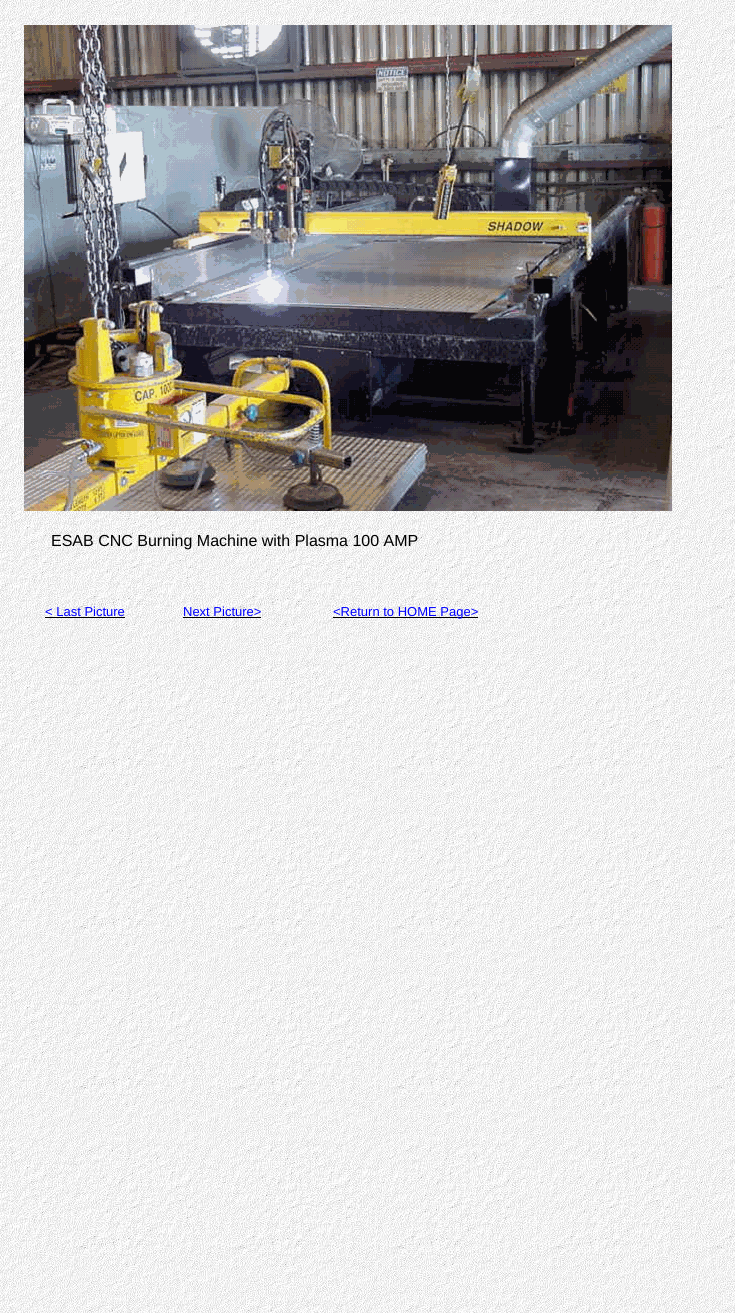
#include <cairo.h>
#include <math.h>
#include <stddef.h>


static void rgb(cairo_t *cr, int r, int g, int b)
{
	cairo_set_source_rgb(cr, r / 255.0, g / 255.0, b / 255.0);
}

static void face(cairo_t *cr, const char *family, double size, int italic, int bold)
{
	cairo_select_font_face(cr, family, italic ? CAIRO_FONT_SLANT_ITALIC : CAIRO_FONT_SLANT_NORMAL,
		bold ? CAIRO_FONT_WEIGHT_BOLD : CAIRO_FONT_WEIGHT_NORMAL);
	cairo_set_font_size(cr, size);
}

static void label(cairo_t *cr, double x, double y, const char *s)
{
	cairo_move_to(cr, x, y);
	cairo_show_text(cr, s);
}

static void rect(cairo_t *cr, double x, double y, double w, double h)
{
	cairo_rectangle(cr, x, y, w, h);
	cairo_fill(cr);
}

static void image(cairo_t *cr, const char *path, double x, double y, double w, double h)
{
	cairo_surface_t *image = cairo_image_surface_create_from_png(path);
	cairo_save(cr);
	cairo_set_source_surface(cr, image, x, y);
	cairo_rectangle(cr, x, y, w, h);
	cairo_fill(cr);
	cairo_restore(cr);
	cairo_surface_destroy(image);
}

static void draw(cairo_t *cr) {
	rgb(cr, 255, 255, 255);
	cairo_paint(cr);
	image(cr, "image0.png", 0, 0, 735, 1313);
	image(cr, "image1.png", 24, 25, 648, 486);
	face(cr, "Liberation Sans", 16, 0, 0);
	rgb(cr, 0, 0, 0);
	label(cr, 51, 546, "ESAB CNC Burning Machine with Plasma 100 AMP");
	face(cr, "Liberation Sans", 13, 0, 0);
	rgb(cr, 0, 0, 255);
	label(cr, 45, 616, "< Last Picture");
	rgb(cr, 0, 0, 0);
	rect(cr, 45, 617, 80, 1);
	rgb(cr, 0, 0, 255);
	label(cr, 183, 616, "Next Picture>");
	rgb(cr, 0, 0, 0);
	rect(cr, 183, 617, 78, 1);
	rect(cr, 333, 617, 145, 1);
	rgb(cr, 0, 0, 255);
	label(cr, 333, 616, "<Return to HOME Page>");
}

int main(void) {
	cairo_surface_t *surface = cairo_image_surface_create(CAIRO_FORMAT_RGB24, 735, 1313);
	cairo_t *cr = cairo_create(surface);
	cairo_font_options_t *options = cairo_font_options_create();
	cairo_font_options_set_hint_metrics(options, CAIRO_HINT_METRICS_OFF);
	cairo_font_options_set_hint_style(options, CAIRO_HINT_STYLE_NONE);
	cairo_set_font_options(cr, options);
	cairo_set_miter_limit(cr, 4);
	draw(cr);
	cairo_surface_write_to_png(surface, "render.png");
	cairo_font_options_destroy(options);
	cairo_destroy(cr);
	cairo_surface_destroy(surface);
	return 0;
}
